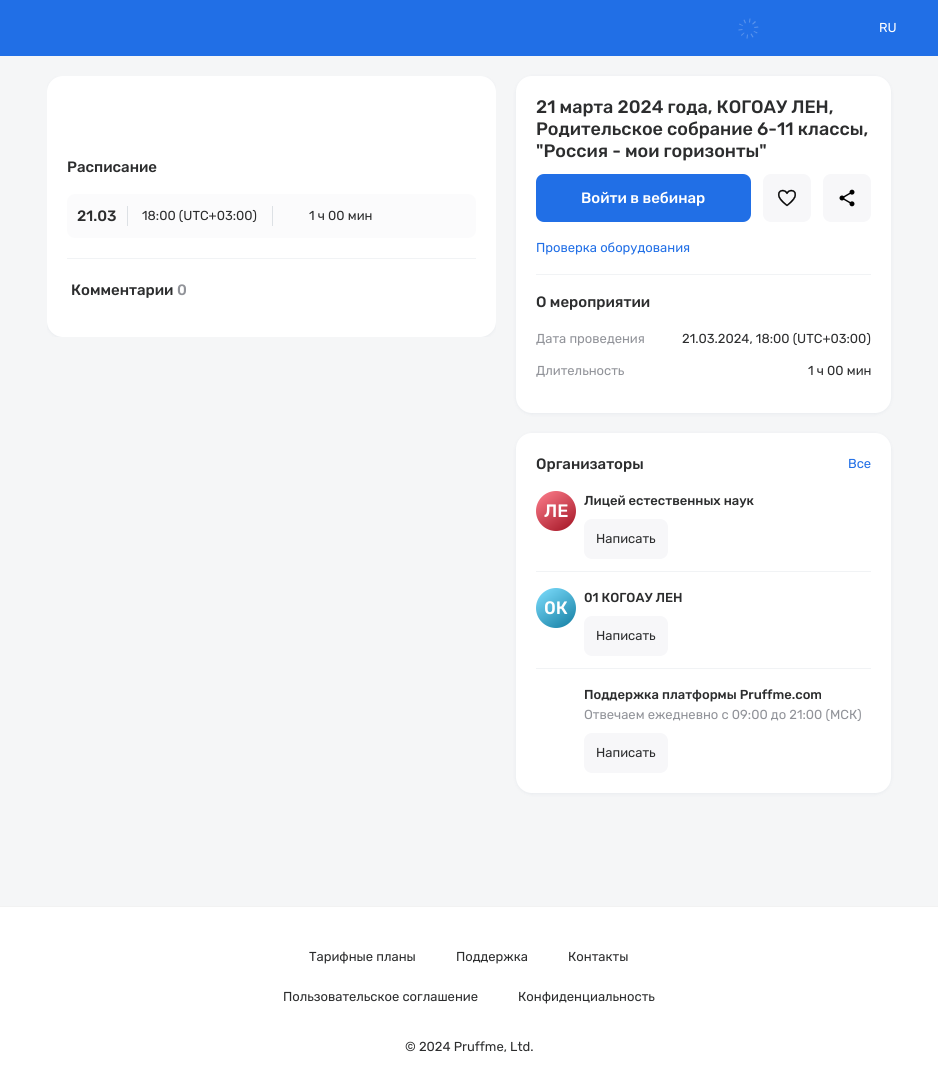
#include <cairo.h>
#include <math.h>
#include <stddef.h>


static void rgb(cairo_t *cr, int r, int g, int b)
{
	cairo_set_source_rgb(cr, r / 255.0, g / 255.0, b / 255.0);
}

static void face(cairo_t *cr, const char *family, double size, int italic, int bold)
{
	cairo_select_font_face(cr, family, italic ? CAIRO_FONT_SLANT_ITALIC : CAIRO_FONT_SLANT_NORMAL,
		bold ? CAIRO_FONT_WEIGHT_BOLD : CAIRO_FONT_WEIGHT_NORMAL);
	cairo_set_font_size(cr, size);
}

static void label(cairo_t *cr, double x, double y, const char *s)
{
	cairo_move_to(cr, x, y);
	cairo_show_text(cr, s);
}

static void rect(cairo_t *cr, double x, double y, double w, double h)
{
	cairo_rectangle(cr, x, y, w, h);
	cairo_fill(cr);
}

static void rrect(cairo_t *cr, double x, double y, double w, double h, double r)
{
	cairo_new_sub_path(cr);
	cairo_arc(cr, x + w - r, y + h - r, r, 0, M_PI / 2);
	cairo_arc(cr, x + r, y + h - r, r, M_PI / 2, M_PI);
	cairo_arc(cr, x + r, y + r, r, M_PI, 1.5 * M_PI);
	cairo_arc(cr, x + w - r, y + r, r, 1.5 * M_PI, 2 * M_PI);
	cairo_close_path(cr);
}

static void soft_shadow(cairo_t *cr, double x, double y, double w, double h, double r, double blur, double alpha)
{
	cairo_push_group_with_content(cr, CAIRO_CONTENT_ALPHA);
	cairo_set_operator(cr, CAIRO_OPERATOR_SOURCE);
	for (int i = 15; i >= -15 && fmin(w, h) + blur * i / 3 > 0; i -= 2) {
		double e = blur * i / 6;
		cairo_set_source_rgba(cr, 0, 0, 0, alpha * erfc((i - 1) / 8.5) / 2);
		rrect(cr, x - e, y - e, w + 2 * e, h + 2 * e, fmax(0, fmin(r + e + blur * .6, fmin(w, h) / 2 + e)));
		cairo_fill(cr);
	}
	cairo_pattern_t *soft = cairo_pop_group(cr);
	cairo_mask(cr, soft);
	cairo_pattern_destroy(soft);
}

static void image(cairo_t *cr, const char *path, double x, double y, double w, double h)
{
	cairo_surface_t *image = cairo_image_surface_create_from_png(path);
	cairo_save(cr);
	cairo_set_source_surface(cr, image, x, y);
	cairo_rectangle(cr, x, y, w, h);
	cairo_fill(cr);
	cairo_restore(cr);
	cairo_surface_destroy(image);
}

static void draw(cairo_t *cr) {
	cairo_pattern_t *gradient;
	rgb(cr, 255, 255, 255);
	cairo_paint(cr);
	rgb(cr, 33, 111, 230);
	rect(cr, 0, 0, 938, 56);
	rgb(cr, 89, 147, 236);
	cairo_new_path(cr);
	cairo_move_to(cr, 754, 31);
	cairo_line_to(cr, 757.5, 32.5);
	cairo_line_to(cr, 757, 33.5);
	cairo_line_to(cr, 753.5, 31.5);
	cairo_close_path(cr);
	cairo_fill(cr);
	cairo_new_path(cr);
	cairo_move_to(cr, 751.5, 33.5);
	cairo_line_to(cr, 753.5, 37);
	cairo_line_to(cr, 752.5, 37.5);
	cairo_line_to(cr, 750.5, 34);
	cairo_close_path(cr);
	cairo_move_to(cr, 748, 34.5);
	cairo_line_to(cr, 747.5, 38.5);
	cairo_line_to(cr, 746.5, 38.5);
	cairo_line_to(cr, 747, 34.5);
	cairo_close_path(cr);
	cairo_move_to(cr, 744.5, 33);
	cairo_line_to(cr, 741.5, 36);
	cairo_line_to(cr, 741, 35);
	cairo_line_to(cr, 744, 32.5);
	cairo_close_path(cr);
	cairo_move_to(cr, 742.5, 30);
	cairo_line_to(cr, 738.5, 30.5);
	cairo_line_to(cr, 738.5, 29.5);
	cairo_line_to(cr, 742.5, 29);
	cairo_close_path(cr);
	cairo_move_to(cr, 743, 26);
	cairo_line_to(cr, 739, 24.5);
	cairo_line_to(cr, 739.5, 23.5);
	cairo_line_to(cr, 743, 25.5);
	cairo_close_path(cr);
	cairo_fill(cr);
	cairo_new_path(cr);
	cairo_move_to(cr, 745, 23.5);
	cairo_line_to(cr, 743.5, 20);
	cairo_line_to(cr, 744.5, 19.5);
	cairo_line_to(cr, 746, 23);
	cairo_close_path(cr);
	cairo_move_to(cr, 749, 22.5);
	cairo_line_to(cr, 749.5, 18.5);
	cairo_line_to(cr, 750.5, 18.5);
	cairo_line_to(cr, 750, 22.5);
	cairo_close_path(cr);
	cairo_move_to(cr, 752, 24);
	cairo_line_to(cr, 755, 21);
	cairo_line_to(cr, 756, 22);
	cairo_line_to(cr, 753, 24.5);
	cairo_close_path(cr);
	cairo_move_to(cr, 754, 27);
	cairo_line_to(cr, 758, 26.5);
	cairo_line_to(cr, 758.5, 27.5);
	cairo_line_to(cr, 754.5, 28);
	cairo_close_path(cr);
	cairo_fill(cr);
	face(cr, "Rubik", 13, 0, 0);
	rgb(cr, 255, 255, 255);
	label(cr, 879, 32, "RU");
	rgb(cr, 245, 246, 247);
	rect(cr, 0, 56, 938, 850);
	cairo_save(cr);
	cairo_rectangle(cr, 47, 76, 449, 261);
	cairo_clip(cr);
	rgb(cr, 12, 42, 86);
	soft_shadow(cr, 47, 77, 449, 261, 16, 2, 0.06);
	cairo_restore(cr);
	rgb(cr, 255, 255, 255);
	rrect(cr, 47, 76, 449, 261, 16);
	cairo_fill(cr);
	rgb(cr, 241, 243, 245);
	rect(cr, 67, 258, 409, 1);
	face(cr, "Rubik Medium", 15, 0, 0);
	rgb(cr, 44, 45, 46);
	label(cr, 67, 172, "Расписание");
	rgb(cr, 251, 251, 252);
	rrect(cr, 67, 194, 409, 44, 8);
	cairo_fill(cr);
	rgb(cr, 44, 45, 46);
	label(cr, 77, 221, "21.03");
	rgb(cr, 221, 225, 229);
	rect(cr, 127, 206, 1, 20);
	face(cr, "Rubik", 13, 0, 0);
	rgb(cr, 44, 45, 46);
	label(cr, 142, 220, "18:00 (UTC+03:00)");
	rgb(cr, 221, 225, 229);
	rect(cr, 272, 206, 1, 20);
	rgb(cr, 44, 45, 46);
	label(cr, 309, 220, "1 ч 00 мин");
	face(cr, "Rubik Medium", 15, 0, 0);
	label(cr, 71, 295, "Комментарии");
	rgb(cr, 145, 147, 153);
	label(cr, 177, 295, "0");
	rgb(cr, 12, 42, 86);
	soft_shadow(cr, 516, 77, 375, 337, 16, 2, 0.06);
	rgb(cr, 255, 255, 255);
	rrect(cr, 516, 76, 375, 337, 16);
	cairo_fill(cr);
	face(cr, "Rubik Medium", 18, 0, 0);
	rgb(cr, 44, 45, 46);
	label(cr, 536, 113, "21 марта 2024 года, КОГОАУ ЛЕН,");
	label(cr, 536, 135, "Родительское собрание 6-11 классы,");
	label(cr, 536, 157, "\"Россия - мои горизонты\"");
	rgb(cr, 33, 111, 230);
	rrect(cr, 536, 174, 215, 48, 8);
	cairo_fill(cr);
	face(cr, "Rubik Medium", 15, 0, 0);
	rgb(cr, 255, 255, 255);
	label(cr, 581, 203, "Войти в вебинар");
	rgb(cr, 247, 247, 249);
	rrect(cr, 763, 174, 48, 48, 8);
	cairo_fill(cr);
	image(cr, "image0.png", 777, 189, 19, 18);
	rrect(cr, 823, 174, 48, 48, 8);
	cairo_fill(cr);
	image(cr, "image1.png", 839, 189, 16, 18);
	face(cr, "Rubik", 13, 0, 0);
	rgb(cr, 33, 111, 230);
	label(cr, 536, 252, "Проверка оборудования");
	rgb(cr, 241, 243, 245);
	rect(cr, 536, 274, 335, 1);
	face(cr, "Rubik Medium", 15, 0, 0);
	rgb(cr, 44, 45, 46);
	label(cr, 536, 307, "О мероприятии");
	face(cr, "Rubik", 13, 0, 0);
	rgb(cr, 145, 147, 153);
	label(cr, 536, 343, "Дата проведения");
	rgb(cr, 44, 45, 46);
	label(cr, 682, 343, "21.03.2024, 18:00 (UTC+03:00)");
	rgb(cr, 145, 147, 153);
	label(cr, 536, 375, "Длительность");
	rgb(cr, 44, 45, 46);
	label(cr, 808, 375, "1 ч 00 мин");
	rgb(cr, 12, 42, 86);
	soft_shadow(cr, 516, 434, 375, 360, 16, 2, 0.06);
	rgb(cr, 255, 255, 255);
	rrect(cr, 516, 433, 375, 360, 16);
	cairo_fill(cr);
	face(cr, "Rubik Medium", 15, 0, 0);
	rgb(cr, 44, 45, 46);
	label(cr, 536, 469, "Организаторы");
	face(cr, "Rubik", 13, 0, 0);
	rgb(cr, 33, 111, 230);
	label(cr, 848, 468, "Все");
	rgb(cr, 241, 243, 245);
	rect(cr, 536, 571, 335, 1);
	gradient = cairo_pattern_create_linear(540, 488, 572, 534);
	cairo_pattern_add_color_stop_rgba(gradient, 0, 1, 0.502, 0.557, 1);
	cairo_pattern_add_color_stop_rgba(gradient, 1, 0.631, 0.071, 0.133, 1);
	cairo_set_source(cr, gradient);
	cairo_pattern_destroy(gradient);
	cairo_new_path(cr);
	cairo_arc(cr, 556, 511, 20, 0, 2 * M_PI);
	cairo_fill(cr);
	face(cr, "Rubik Medium", 18, 0, 0);
	rgb(cr, 255, 255, 255);
	label(cr, 544, 517, "ЛЕ");
	face(cr, "Rubik Medium", 13, 0, 0);
	rgb(cr, 44, 45, 46);
	label(cr, 584, 505, "Лицей естественных наук");
	rgb(cr, 247, 247, 249);
	rrect(cr, 584, 519, 84, 40, 8);
	cairo_fill(cr);
	face(cr, "Rubik", 13, 0, 0);
	rgb(cr, 44, 45, 46);
	label(cr, 596, 543, "Написать");
	rgb(cr, 241, 243, 245);
	rect(cr, 536, 668, 335, 1);
	gradient = cairo_pattern_create_linear(540, 585, 572, 631);
	cairo_pattern_add_color_stop_rgba(gradient, 0, 0.502, 0.875, 1, 1);
	cairo_pattern_add_color_stop_rgba(gradient, 1, 0.071, 0.49, 0.631, 1);
	cairo_set_source(cr, gradient);
	cairo_pattern_destroy(gradient);
	cairo_new_path(cr);
	cairo_arc(cr, 556, 608, 20, 0, 2 * M_PI);
	cairo_fill(cr);
	face(cr, "Rubik Medium", 18, 0, 0);
	rgb(cr, 255, 255, 255);
	label(cr, 544, 614, "0К");
	face(cr, "Rubik Medium", 13, 0, 0);
	rgb(cr, 44, 45, 46);
	label(cr, 584, 602, "01 КОГОАУ ЛЕН");
	rgb(cr, 247, 247, 249);
	rrect(cr, 584, 616, 84, 40, 8);
	cairo_fill(cr);
	face(cr, "Rubik", 13, 0, 0);
	rgb(cr, 44, 45, 46);
	label(cr, 596, 640, "Написать");
	face(cr, "Rubik Medium", 13, 0, 0);
	label(cr, 584, 699, "Поддержка платформы Pruffme.com");
	face(cr, "Rubik", 13, 0, 0);
	rgb(cr, 145, 147, 153);
	label(cr, 584, 719, "Отвечаем ежедневно с 09:00 до 21:00 (МСК)");
	rgb(cr, 247, 247, 249);
	rrect(cr, 584, 733, 84, 40, 8);
	cairo_fill(cr);
	rgb(cr, 44, 45, 46);
	label(cr, 596, 757, "Написать");
	rgb(cr, 242, 242, 242);
	rect(cr, 0, 906, 938, 1);
	rgb(cr, 44, 45, 46);
	label(cr, 309, 961, "Тарифные планы");
	label(cr, 456, 961, "Поддержка");
	label(cr, 568, 961, "Контакты");
	label(cr, 283, 1001, "Пользовaтельское соглашение");
	label(cr, 518, 1001, "Конфиденциальность");
	label(cr, 405, 1051, "© 2024 Pruffme, Ltd.");
}

int main(void) {
	cairo_surface_t *surface = cairo_image_surface_create(CAIRO_FORMAT_RGB24, 938, 1077);
	cairo_t *cr = cairo_create(surface);
	cairo_font_options_t *options = cairo_font_options_create();
	cairo_font_options_set_hint_metrics(options, CAIRO_HINT_METRICS_OFF);
	cairo_font_options_set_hint_style(options, CAIRO_HINT_STYLE_NONE);
	cairo_set_font_options(cr, options);
	cairo_set_miter_limit(cr, 4);
	draw(cr);
	cairo_surface_write_to_png(surface, "render.png");
	cairo_font_options_destroy(options);
	cairo_destroy(cr);
	cairo_surface_destroy(surface);
	return 0;
}
